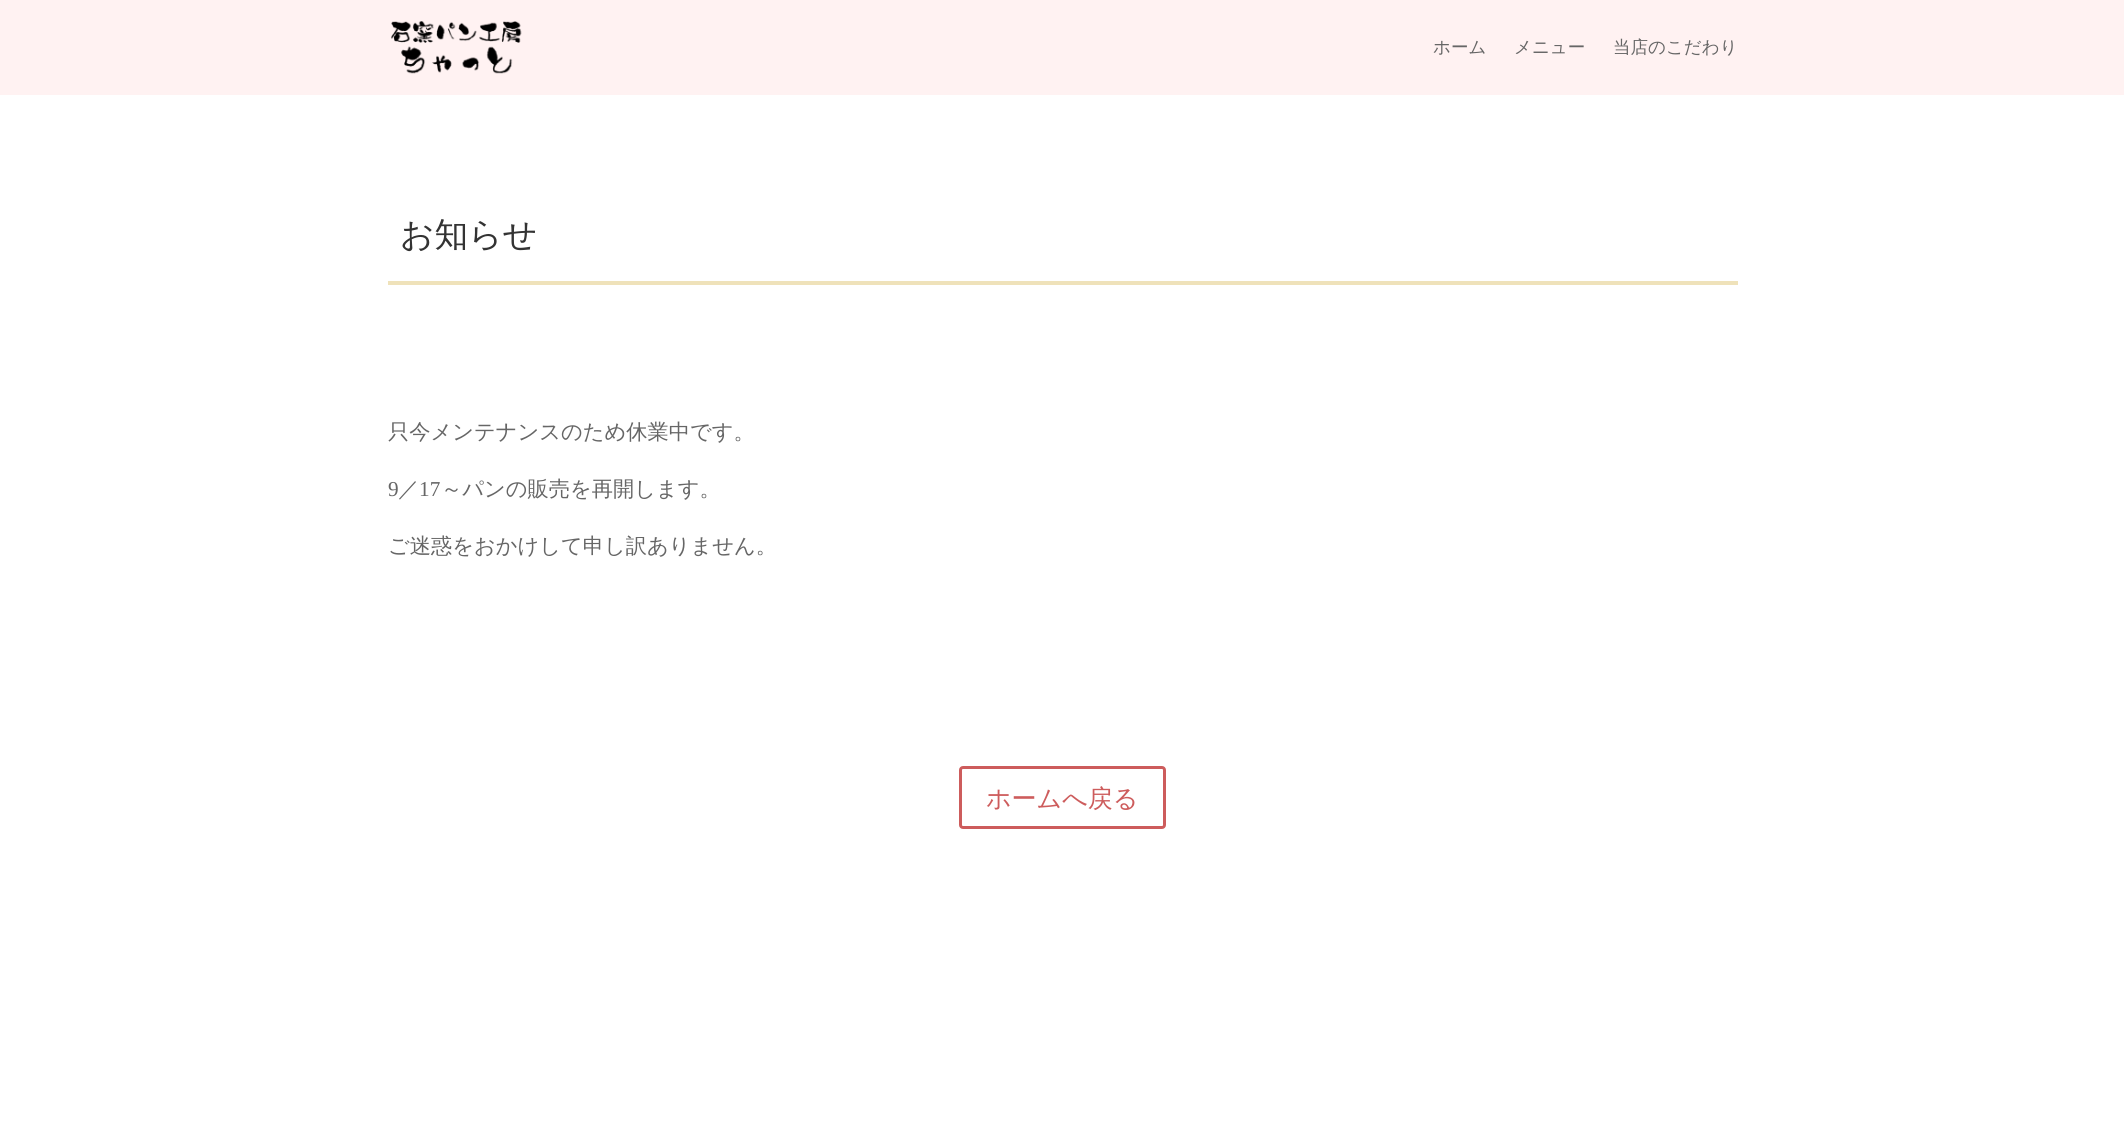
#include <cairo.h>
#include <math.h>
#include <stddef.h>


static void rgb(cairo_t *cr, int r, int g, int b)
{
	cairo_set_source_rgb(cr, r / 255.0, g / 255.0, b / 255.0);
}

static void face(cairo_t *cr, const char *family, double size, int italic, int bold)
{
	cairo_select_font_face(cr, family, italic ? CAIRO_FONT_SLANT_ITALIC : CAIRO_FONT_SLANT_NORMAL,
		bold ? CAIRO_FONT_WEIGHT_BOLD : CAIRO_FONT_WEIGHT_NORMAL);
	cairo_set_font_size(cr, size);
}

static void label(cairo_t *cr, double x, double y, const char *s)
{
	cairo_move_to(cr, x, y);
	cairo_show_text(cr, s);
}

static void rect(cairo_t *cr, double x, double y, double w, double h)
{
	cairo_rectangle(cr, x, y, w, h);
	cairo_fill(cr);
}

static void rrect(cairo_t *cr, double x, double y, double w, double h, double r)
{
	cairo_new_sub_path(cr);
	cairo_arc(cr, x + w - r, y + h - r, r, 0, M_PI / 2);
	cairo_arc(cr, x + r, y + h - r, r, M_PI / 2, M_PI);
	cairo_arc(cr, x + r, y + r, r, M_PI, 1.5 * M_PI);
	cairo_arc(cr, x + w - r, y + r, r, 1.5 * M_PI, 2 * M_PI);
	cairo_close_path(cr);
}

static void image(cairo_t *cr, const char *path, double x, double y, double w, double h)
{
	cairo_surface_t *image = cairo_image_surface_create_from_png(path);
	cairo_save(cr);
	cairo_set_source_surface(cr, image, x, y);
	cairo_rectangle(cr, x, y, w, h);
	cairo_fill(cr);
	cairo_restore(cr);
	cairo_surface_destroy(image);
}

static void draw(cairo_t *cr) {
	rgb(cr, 255, 255, 255);
	cairo_paint(cr);
	rgb(cr, 255, 242, 242);
	rect(cr, 0, 0, 2124, 95);
	image(cr, "image0.png", 391, 21, 131, 53);
	face(cr, "WenQuanYi Zen Hei Medium", 17.5, 0, 0);
	rgb(cr, 102, 102, 102);
	label(cr, 1433, 53, "ホーム");
	label(cr, 1514, 53, "メニュー");
	label(cr, 1613, 53, "当店のこだわり");
	rgb(cr, 239, 226, 186);
	rect(cr, 388, 281, 1350, 4);
	face(cr, "WenQuanYi Zen Hei Medium", 33.75, 0, 0);
	rgb(cr, 51, 51, 51);
	label(cr, 400, 246, "お知らせ");
	face(cr, "WenQuanYi Zen Hei Medium", 21.25, 0, 0);
	rgb(cr, 102, 102, 102);
	label(cr, 388, 439, "只今メンテナンスのため休業中です。");
	face(cr, "Liberation Serif", 21.25, 0, 0);
	label(cr, 388, 496, "9");
	face(cr, "WenQuanYi Zen Hei Medium", 21.25, 0, 0);
	label(cr, 398, 496, "／");
	face(cr, "Liberation Serif", 21.25, 0, 0);
	label(cr, 419, 496, "17");
	face(cr, "WenQuanYi Zen Hei Medium", 21.25, 0, 0);
	label(cr, 441, 496, "～パンの販売を再開します。");
	label(cr, 388, 553, "ご迷惑をおかけして申し訳ありません。");
	rrect(cr, 960.5, 767.5, 204, 60, 2.5);
	rgb(cr, 205, 92, 92);
	cairo_set_line_width(cr, 3);
	cairo_stroke(cr);
	face(cr, "WenQuanYi Zen Hei Medium", 25, 0, 0);
	label(cr, 986, 807, "ホームへ戻る");
}

int main(void) {
	cairo_surface_t *surface = cairo_image_surface_create(CAIRO_FORMAT_RGB24, 2124, 1136);
	cairo_t *cr = cairo_create(surface);
	cairo_font_options_t *options = cairo_font_options_create();
	cairo_font_options_set_hint_metrics(options, CAIRO_HINT_METRICS_OFF);
	cairo_font_options_set_hint_style(options, CAIRO_HINT_STYLE_NONE);
	cairo_set_font_options(cr, options);
	cairo_set_miter_limit(cr, 4);
	draw(cr);
	cairo_surface_write_to_png(surface, "render.png");
	cairo_font_options_destroy(options);
	cairo_destroy(cr);
	cairo_surface_destroy(surface);
	return 0;
}
